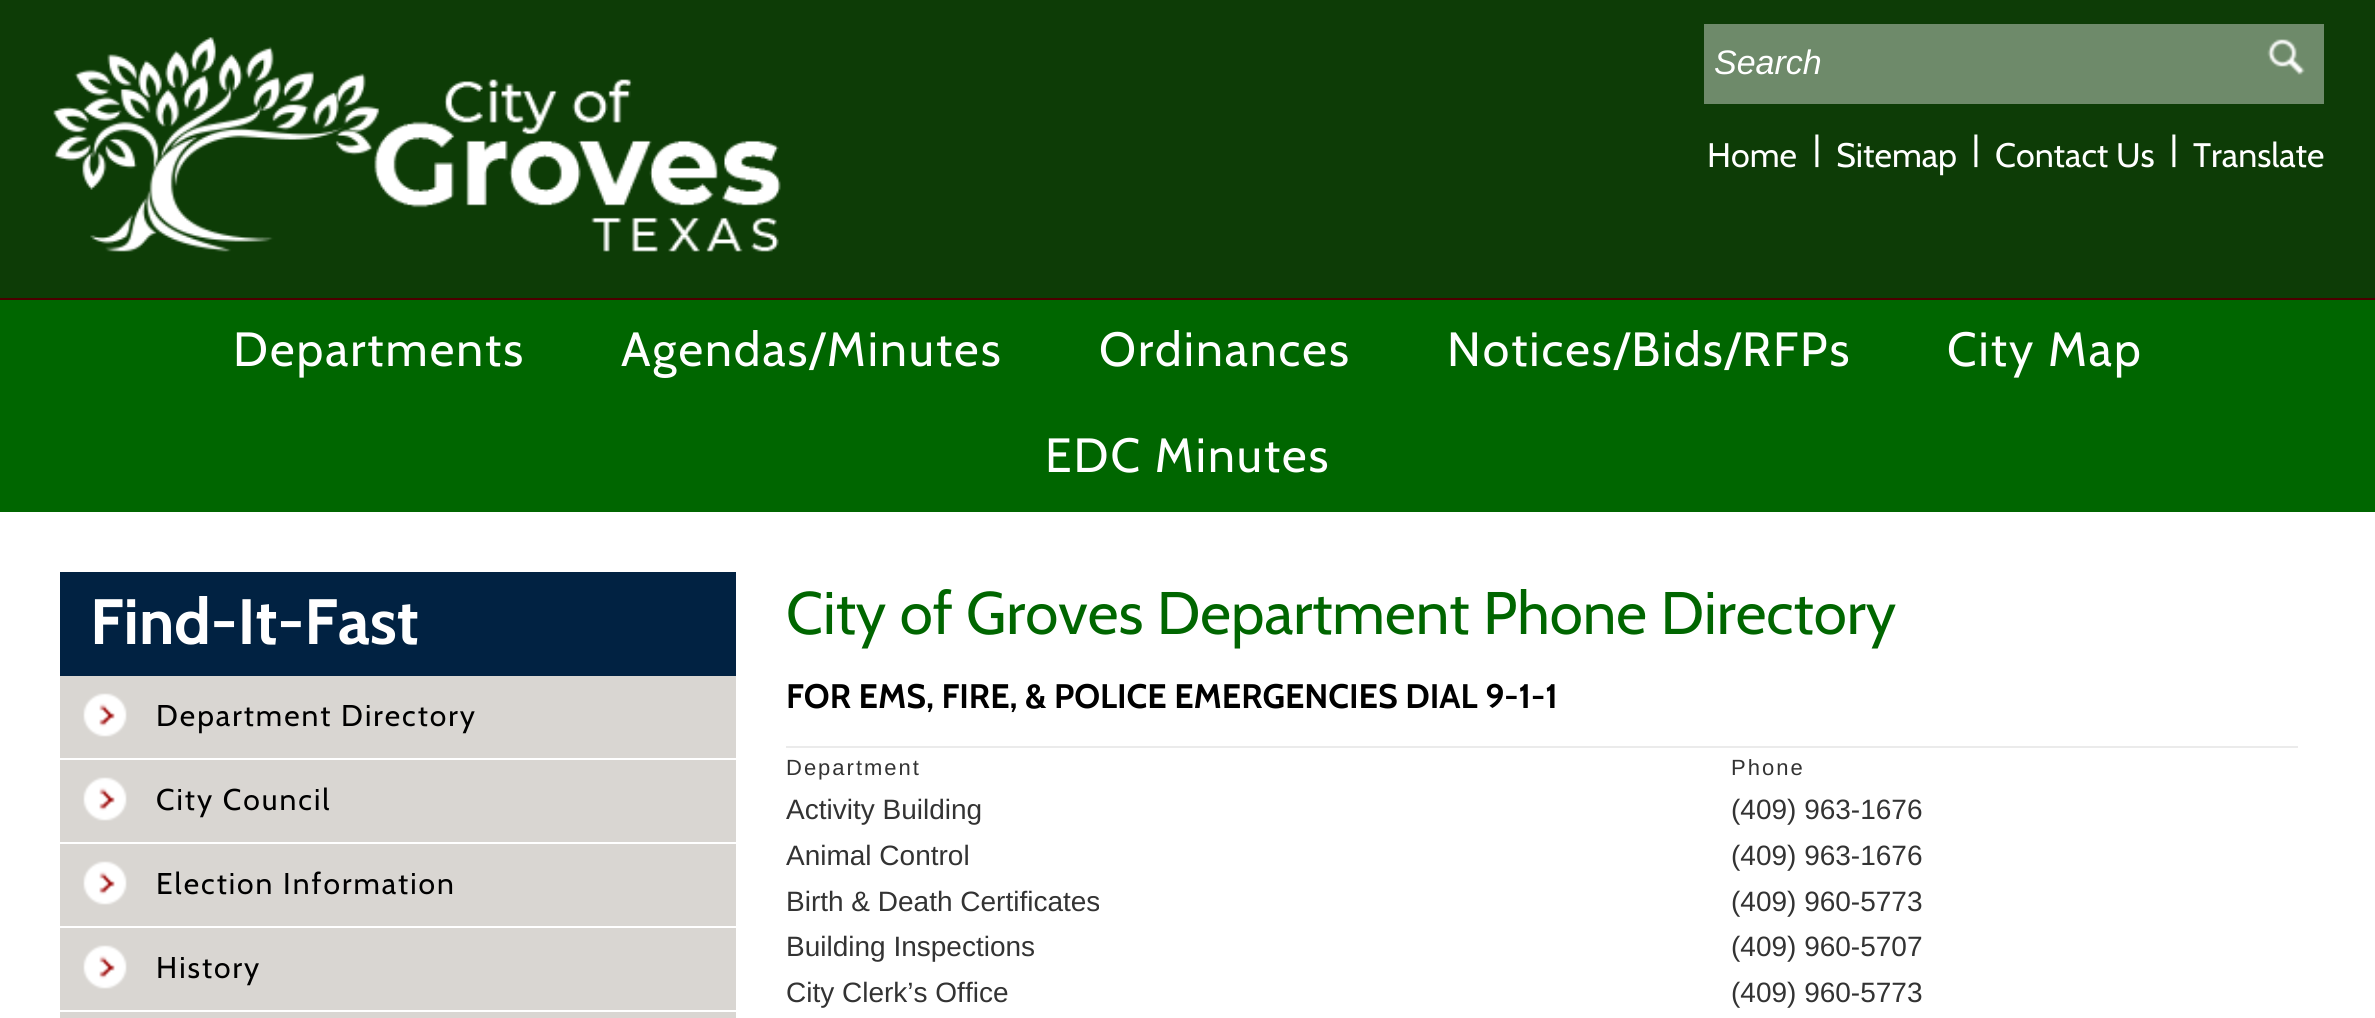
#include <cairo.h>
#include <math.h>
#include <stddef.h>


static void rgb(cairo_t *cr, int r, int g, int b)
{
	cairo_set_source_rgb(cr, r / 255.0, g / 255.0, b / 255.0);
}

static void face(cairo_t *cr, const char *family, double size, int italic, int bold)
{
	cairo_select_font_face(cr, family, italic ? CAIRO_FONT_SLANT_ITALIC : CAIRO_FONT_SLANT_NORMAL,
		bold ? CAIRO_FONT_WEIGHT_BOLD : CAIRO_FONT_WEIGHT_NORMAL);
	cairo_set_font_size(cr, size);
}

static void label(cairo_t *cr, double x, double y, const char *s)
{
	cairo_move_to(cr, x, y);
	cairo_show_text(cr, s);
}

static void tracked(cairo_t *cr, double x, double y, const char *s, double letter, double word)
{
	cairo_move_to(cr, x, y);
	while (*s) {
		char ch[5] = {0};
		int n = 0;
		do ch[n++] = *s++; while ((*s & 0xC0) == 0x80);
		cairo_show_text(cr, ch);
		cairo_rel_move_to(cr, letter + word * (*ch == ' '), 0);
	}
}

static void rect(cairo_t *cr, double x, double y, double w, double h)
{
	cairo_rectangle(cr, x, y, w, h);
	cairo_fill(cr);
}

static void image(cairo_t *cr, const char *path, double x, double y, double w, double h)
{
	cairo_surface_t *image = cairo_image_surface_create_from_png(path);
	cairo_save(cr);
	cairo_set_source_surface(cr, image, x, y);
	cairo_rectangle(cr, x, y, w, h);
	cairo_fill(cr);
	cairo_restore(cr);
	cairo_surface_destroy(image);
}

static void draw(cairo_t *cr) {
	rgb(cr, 255, 255, 255);
	cairo_paint(cr);
	rgb(cr, 13, 60, 6);
	rect(cr, 0, 0, 2375, 298);
	rgb(cr, 76, 0, 0);
	rect(cr, 0, 298, 2375, 2);
	image(cr, "image0.png", 53, 37, 728, 215);
	rgb(cr, 110, 138, 106);
	rect(cr, 1704, 24, 620, 80);
	face(cr, "Liberation Sans", 34, 1, 0);
	rgb(cr, 255, 255, 255);
	label(cr, 1714, 74, "Search");
	image(cr, "image1.png", 2267, 39, 38, 36);
	face(cr, "Cabin", 34, 0, 0);
	label(cr, 1707, 167, "Home");
	label(cr, 1813, 160, "|");
	label(cr, 1836, 167, "Sitemap");
	label(cr, 1972, 160, "|");
	label(cr, 1995, 167, "Contact Us");
	label(cr, 2170, 160, "|");
	label(cr, 2193, 167, "Translate");
	rgb(cr, 0, 102, 0);
	rect(cr, 0, 300, 2375, 212);
	face(cr, "Cabin", 48, 0, 0);
	rgb(cr, 255, 255, 255);
	tracked(cr, 233, 366, "Departments", 2, 0);
	tracked(cr, 621, 366, "Agendas/Minutes", 2, 0);
	tracked(cr, 1099, 366, "Ordinances", 2, 0);
	tracked(cr, 1447, 366, "Notices/Bids/RFPs", 2, 0);
	tracked(cr, 1947, 366, "City Map", 2, 0);
	tracked(cr, 1045, 472, "EDC Minutes", 2, 0);
	rgb(cr, 217, 214, 210);
	rect(cr, 60, 676, 676, 342);
	rgb(cr, 1, 34, 66);
	rect(cr, 60, 572, 676, 104);
	face(cr, "Cabin", 64, 0, 1);
	rgb(cr, 255, 255, 255);
	label(cr, 90, 644, "Find-It-Fast");
	image(cr, "image2.png", 83, 693, 44, 44);
	rect(cr, 60, 758, 676, 2);
	face(cr, "Cabin", 30, 0, 0);
	rgb(cr, 0, 0, 0);
	tracked(cr, 156, 726, "Department Directory", 2, 0);
	image(cr, "image2.png", 83, 777, 44, 44);
	rgb(cr, 255, 255, 255);
	rect(cr, 60, 842, 676, 2);
	rgb(cr, 0, 0, 0);
	tracked(cr, 156, 810, "City Council", 2, 0);
	image(cr, "image2.png", 83, 861, 44, 44);
	rgb(cr, 255, 255, 255);
	rect(cr, 60, 926, 676, 2);
	rgb(cr, 0, 0, 0);
	tracked(cr, 156, 894, "Election Information", 2, 0);
	image(cr, "image2.png", 83, 945, 44, 44);
	rgb(cr, 255, 255, 255);
	rect(cr, 60, 1010, 676, 2);
	rgb(cr, 0, 0, 0);
	tracked(cr, 156, 978, "History", 2, 0);
	face(cr, "Cabin", 60, 0, 0);
	rgb(cr, 0, 102, 0);
	label(cr, 786, 634, "City of Groves Department Phone Directory");
	face(cr, "Cabin", 34, 0, 1);
	rgb(cr, 0, 0, 0);
	label(cr, 786, 708, "FOR EMS, FIRE, & POLICE EMERGENCIES DIAL 9-1-1");
	rgb(cr, 235, 235, 235);
	rect(cr, 786, 746, 1512, 2);
	face(cr, "Liberation Sans", 22, 0, 0);
	rgb(cr, 51, 51, 51);
	tracked(cr, 786, 775, "Department", 2, 0);
	tracked(cr, 1731, 775, "Phone", 2, 0);
	face(cr, "Liberation Sans", 28, 0, 0);
	label(cr, 786, 819, "Activity Building");
	label(cr, 1731, 819, "(409) 963-1676");
	label(cr, 786, 865, "Animal Control");
	label(cr, 1731, 865, "(409) 963-1676");
	label(cr, 786, 911, "Birth & Death Certificates");
	label(cr, 1731, 911, "(409) 960-5773");
	label(cr, 786, 956, "Building Inspections");
	label(cr, 1731, 956, "(409) 960-5707");
	label(cr, 786, 1002, "City Clerk’s Office");
	label(cr, 1731, 1002, "(409) 960-5773");
}

int main(void) {
	cairo_surface_t *surface = cairo_image_surface_create(CAIRO_FORMAT_RGB24, 2375, 1018);
	cairo_t *cr = cairo_create(surface);
	cairo_font_options_t *options = cairo_font_options_create();
	cairo_font_options_set_hint_metrics(options, CAIRO_HINT_METRICS_OFF);
	cairo_font_options_set_hint_style(options, CAIRO_HINT_STYLE_NONE);
	cairo_set_font_options(cr, options);
	cairo_set_miter_limit(cr, 4);
	draw(cr);
	cairo_surface_write_to_png(surface, "render.png");
	cairo_font_options_destroy(options);
	cairo_destroy(cr);
	cairo_surface_destroy(surface);
	return 0;
}
